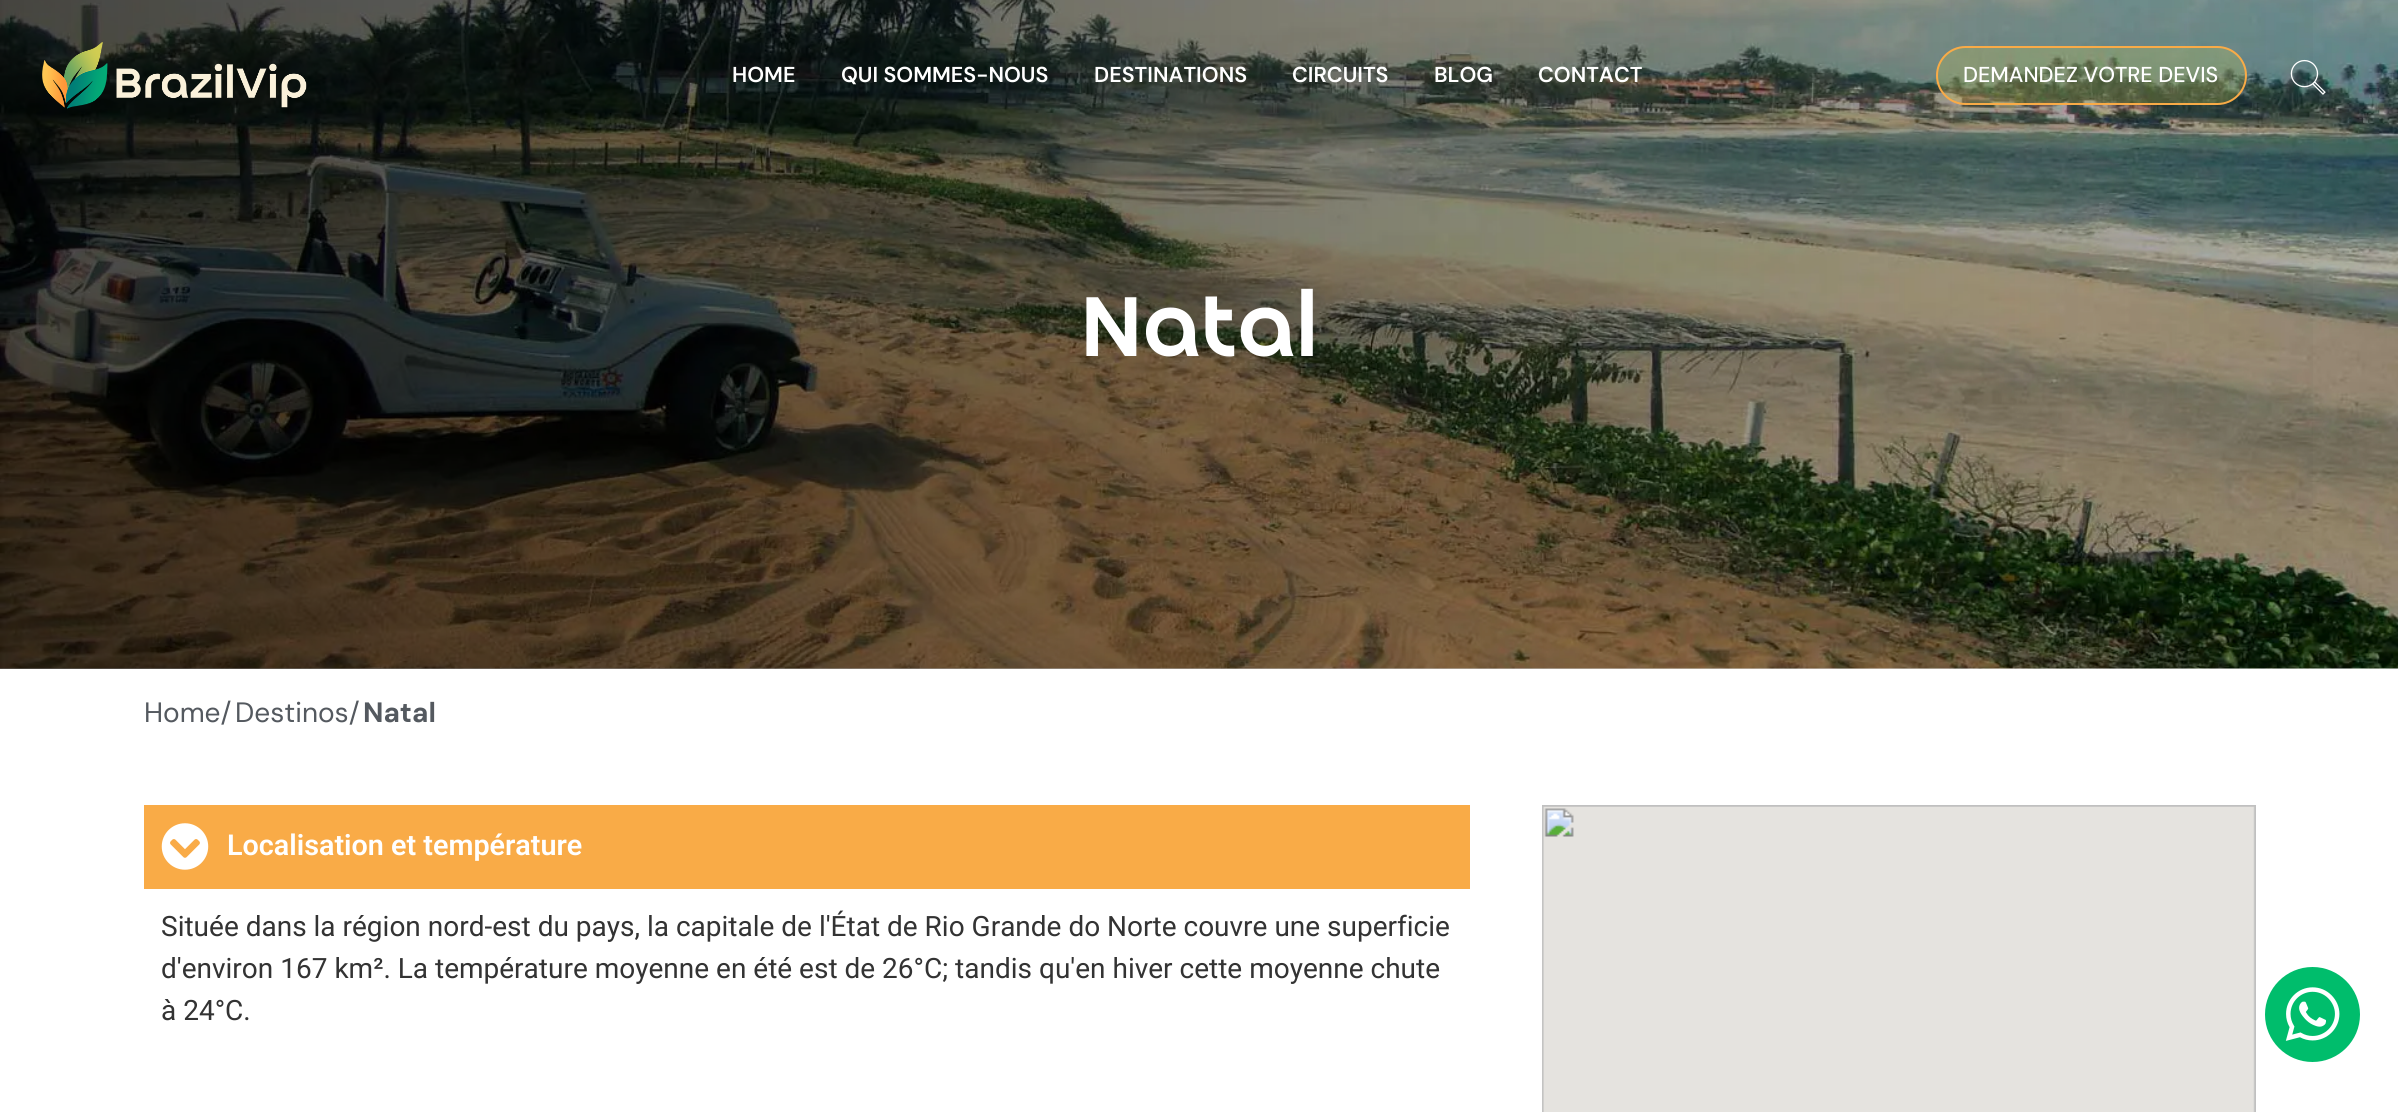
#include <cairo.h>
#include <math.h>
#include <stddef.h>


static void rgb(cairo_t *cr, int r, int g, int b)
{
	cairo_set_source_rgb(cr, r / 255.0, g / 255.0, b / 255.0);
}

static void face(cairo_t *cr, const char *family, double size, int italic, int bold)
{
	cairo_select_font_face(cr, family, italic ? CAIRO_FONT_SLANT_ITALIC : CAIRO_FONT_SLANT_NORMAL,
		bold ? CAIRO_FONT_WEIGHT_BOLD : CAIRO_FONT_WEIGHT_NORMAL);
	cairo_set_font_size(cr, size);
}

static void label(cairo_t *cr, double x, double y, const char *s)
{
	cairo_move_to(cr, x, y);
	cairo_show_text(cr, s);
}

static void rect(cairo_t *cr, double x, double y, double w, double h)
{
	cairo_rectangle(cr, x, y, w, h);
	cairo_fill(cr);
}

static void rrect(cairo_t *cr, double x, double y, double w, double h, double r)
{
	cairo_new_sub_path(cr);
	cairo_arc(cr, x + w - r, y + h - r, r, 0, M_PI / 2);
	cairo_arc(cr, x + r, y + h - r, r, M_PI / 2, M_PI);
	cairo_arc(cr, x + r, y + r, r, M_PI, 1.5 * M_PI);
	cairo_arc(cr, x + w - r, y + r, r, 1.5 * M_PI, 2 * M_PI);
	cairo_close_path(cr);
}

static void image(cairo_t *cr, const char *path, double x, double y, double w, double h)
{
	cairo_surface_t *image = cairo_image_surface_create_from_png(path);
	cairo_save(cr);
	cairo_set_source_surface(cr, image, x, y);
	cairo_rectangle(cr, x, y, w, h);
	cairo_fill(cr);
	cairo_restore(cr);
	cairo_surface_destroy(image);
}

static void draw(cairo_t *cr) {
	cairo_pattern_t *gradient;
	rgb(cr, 255, 255, 255);
	cairo_paint(cr);
	image(cr, "image2.png", 0, 0, 2398, 669);
	gradient = cairo_pattern_create_linear(0, 334, 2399, 334);
	cairo_pattern_add_color_stop_rgba(gradient, 0, 0, 0, 0, 0.6);
	cairo_pattern_add_color_stop_rgba(gradient, 1, 0, 0, 0, 0);
	cairo_set_source(cr, gradient);
	cairo_pattern_destroy(gradient);
	rect(cr, 0, 0, 2313, 669);
	image(cr, "image0.png", 42, 42, 265, 67);
	face(cr, "DM Sans SemiBold", 21.6, 0, 0);
	rgb(cr, 255, 255, 255);
	label(cr, 732, 82, "HOME");
	label(cr, 841, 82, "QUI SOMMES-NOUS");
	label(cr, 1094, 82, "DESTINATIONS");
	label(cr, 1292, 82, "CIRCUITS");
	label(cr, 1434, 82, "BLOG");
	label(cr, 1538, 82, "CONTACT");
	cairo_set_source_rgba(cr, 0.82, 0.804, 0.322, 0.24);
	rrect(cr, 1937, 47, 309, 57, 28.5);
	cairo_fill_preserve(cr);
	rgb(cr, 249, 171, 71);
	cairo_stroke(cr);
	face(cr, "DM Sans Medium", 21.6, 0, 0);
	rgb(cr, 255, 255, 255);
	label(cr, 1963, 82, "DEMANDEZ VOTRE DEVIS");
	image(cr, "image1.png", 2290, 59, 36, 36);
	face(cr, "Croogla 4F", 96, 0, 0);
	label(cr, 1080, 356, "Natal");
	face(cr, "DM Sans", 28, 0, 0);
	rgb(cr, 84, 89, 95);
	label(cr, 144, 722, "Home/");
	label(cr, 235, 722, "Destinos/");
	face(cr, "DM Sans", 28, 0, 1);
	label(cr, 363, 722, "Natal");
	rgb(cr, 249, 171, 71);
	rect(cr, 144, 805, 1326, 84);
	image(cr, "image3.png", 161, 823, 48, 47);
	face(cr, "Roboto SemiBold", 28.75, 0, 0);
	rgb(cr, 255, 255, 255);
	label(cr, 227, 855, "Localisation et température");
	face(cr, "Roboto", 28, 0, 0);
	rgb(cr, 51, 51, 51);
	label(cr, 161, 936, "Située dans la région nord-est du pays, la capitale de l'État de Rio Grande do Norte couvre une superficie");
	label(cr, 161, 978, "d'environ 167 km². La température moyenne en été est de 26°C; tandis qu'en hiver cette moyenne chute");
	label(cr, 161, 1020, "à 24°C.");
	image(cr, "image4.png", 1542, 805, 714, 307);
	rgb(cr, 0, 189, 108);
	cairo_arc(cr, 2312.5, 1014.5, 49.5, 0, 2 * M_PI);
	cairo_fill_preserve(cr);
	rgb(cr, 255, 255, 255);
	cairo_set_line_width(cr, 4);
	cairo_stroke(cr);
	image(cr, "image5.png", 2285, 987, 55, 54);
}

int main(void) {
	cairo_surface_t *surface = cairo_image_surface_create(CAIRO_FORMAT_RGB24, 2398, 1112);
	cairo_t *cr = cairo_create(surface);
	cairo_font_options_t *options = cairo_font_options_create();
	cairo_font_options_set_hint_metrics(options, CAIRO_HINT_METRICS_OFF);
	cairo_font_options_set_hint_style(options, CAIRO_HINT_STYLE_NONE);
	cairo_set_font_options(cr, options);
	cairo_set_miter_limit(cr, 4);
	draw(cr);
	cairo_surface_write_to_png(surface, "render.png");
	cairo_font_options_destroy(options);
	cairo_destroy(cr);
	cairo_surface_destroy(surface);
	return 0;
}
